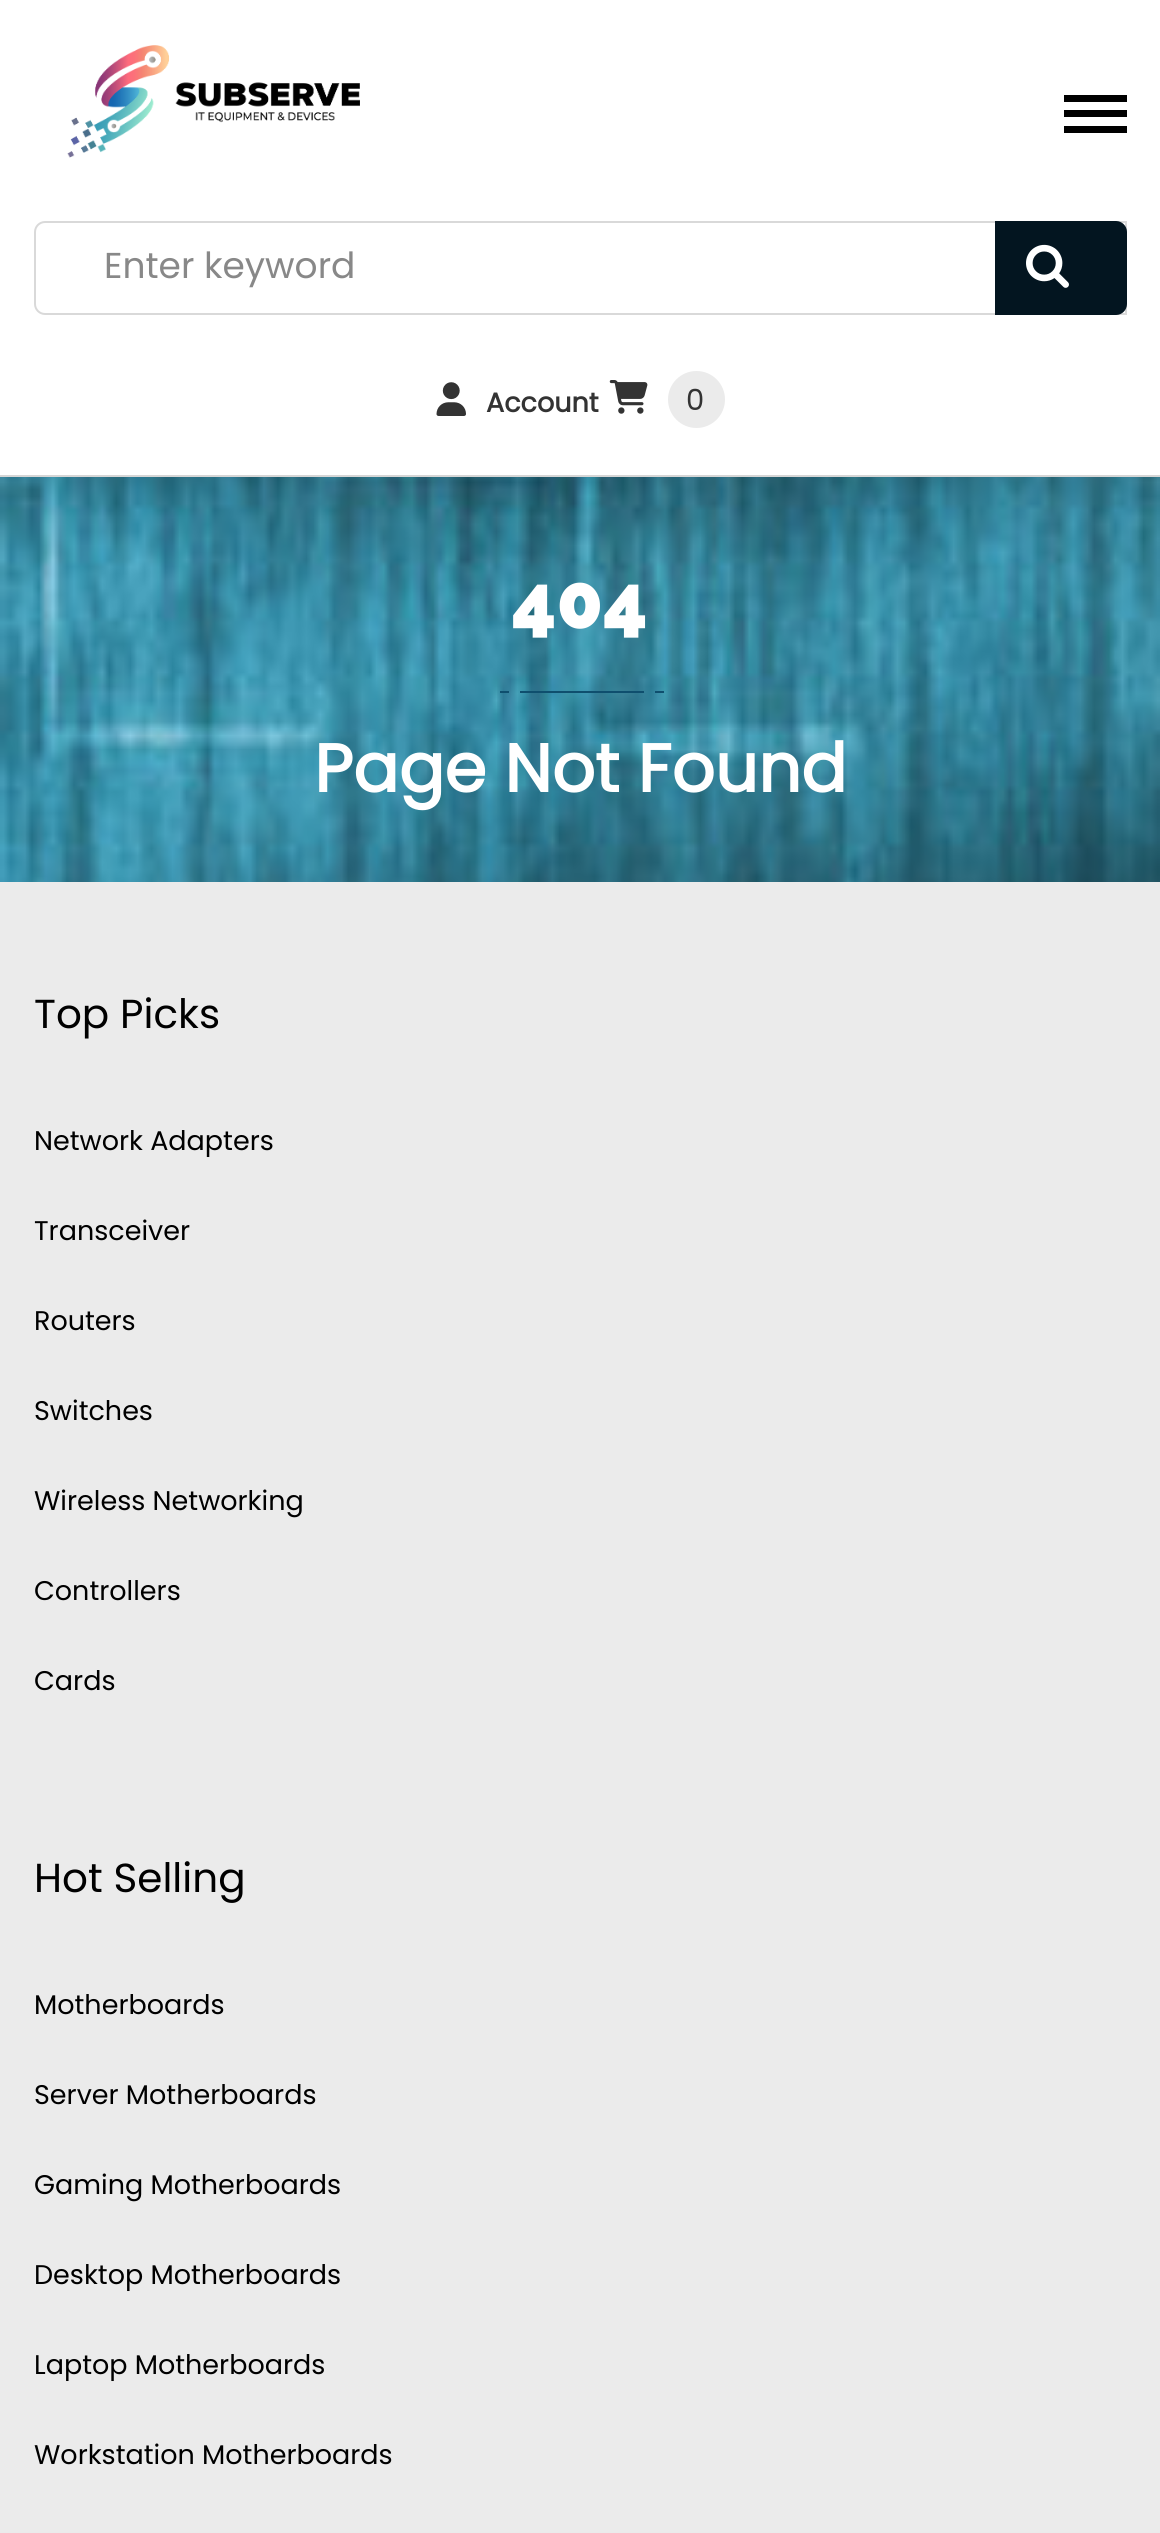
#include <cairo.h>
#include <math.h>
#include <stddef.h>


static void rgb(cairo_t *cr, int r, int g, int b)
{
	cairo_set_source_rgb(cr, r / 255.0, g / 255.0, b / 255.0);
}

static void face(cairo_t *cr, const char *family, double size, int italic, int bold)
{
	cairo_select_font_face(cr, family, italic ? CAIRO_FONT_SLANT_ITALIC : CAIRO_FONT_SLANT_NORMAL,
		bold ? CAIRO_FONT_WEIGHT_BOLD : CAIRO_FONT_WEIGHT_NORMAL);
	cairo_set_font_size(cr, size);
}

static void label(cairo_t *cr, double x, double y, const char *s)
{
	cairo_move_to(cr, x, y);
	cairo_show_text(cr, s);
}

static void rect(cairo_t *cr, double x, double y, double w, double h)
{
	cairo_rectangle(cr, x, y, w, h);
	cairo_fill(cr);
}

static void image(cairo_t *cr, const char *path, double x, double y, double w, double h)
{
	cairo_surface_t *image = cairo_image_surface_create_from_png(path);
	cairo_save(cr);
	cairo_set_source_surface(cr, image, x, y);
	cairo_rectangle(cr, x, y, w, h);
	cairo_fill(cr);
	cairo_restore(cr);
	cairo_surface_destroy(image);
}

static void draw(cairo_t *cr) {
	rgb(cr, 255, 255, 255);
	cairo_paint(cr);
	image(cr, "image0.png", 67, 45, 293, 113);
	rgb(cr, 0, 0, 0);
	rect(cr, 1064, 95, 63, 7);
	rect(cr, 1064, 110, 63, 7);
	rect(cr, 1064, 126, 63, 7);
	cairo_new_path(cr);
	cairo_move_to(cr, 45, 222);
	cairo_line_to(cr, 1126, 222);
	cairo_line_to(cr, 1126, 314);
	cairo_line_to(cr, 45, 314);
	cairo_curve_to(cr, 39.5, 314, 35, 309.5, 35, 304);
	cairo_line_to(cr, 35, 232);
	cairo_curve_to(cr, 35, 226.5, 39.5, 222, 45, 222);
	cairo_close_path(cr);
	rgb(cr, 217, 217, 217);
	cairo_stroke(cr);
	face(cr, "Poppins", 36, 0, 0);
	rgb(cr, 136, 136, 136);
	label(cr, 104, 278, "Enter keyword");
	rgb(cr, 3, 21, 32);
	cairo_new_path(cr);
	cairo_move_to(cr, 995, 221);
	cairo_line_to(cr, 1116, 221);
	cairo_curve_to(cr, 1122, 221, 1127, 226, 1127, 232);
	cairo_line_to(cr, 1127, 304);
	cairo_curve_to(cr, 1127, 310, 1122, 315, 1116, 315);
	cairo_line_to(cr, 995, 315);
	cairo_close_path(cr);
	cairo_fill(cr);
	image(cr, "image1.png", 1026, 244, 43, 44);
	image(cr, "image2.png", 436, 382, 30, 34);
	face(cr, "Poppins", 27, 0, 1);
	rgb(cr, 51, 51, 51);
	label(cr, 486, 412, "Account");
	image(cr, "image3.png", 609, 380, 39, 34);
	rgb(cr, 235, 235, 235);
	cairo_arc(cr, 696.5, 399.5, 28.5, 0, 2 * M_PI);
	cairo_fill(cr);
	face(cr, "Poppins", 29, 0, 0);
	rgb(cr, 51, 51, 51);
	label(cr, 686, 410, "0");
	rgb(cr, 214, 214, 214);
	rect(cr, 0, 475, 1160, 2);
	image(cr, "image4.png", 0, 477, 1160, 405);
	face(cr, "Raleway Black", 76, 0, 0);
	rgb(cr, 255, 255, 255);
	label(cr, 512, 628, "404");
	rgb(cr, 15, 79, 110);
	rect(cr, 520, 691, 124, 2);
	rect(cr, 500, 691, 9, 2);
	rect(cr, 655, 691, 9, 2);
	face(cr, "Poppins", 67.5, 0, 1);
	rgb(cr, 255, 255, 255);
	label(cr, 314, 792, "Page Not Found");
	rgb(cr, 235, 235, 235);
	rect(cr, 0, 882, 1160, 1651);
	face(cr, "Poppins", 40.5, 0, 0);
	rgb(cr, 0, 0, 0);
	label(cr, 34, 1028, "Top Picks");
	face(cr, "Poppins", 27, 0, 0);
	label(cr, 34, 1150, "Network Adapters");
	label(cr, 34, 1240, "Transceiver");
	label(cr, 34, 1330, "Routers");
	label(cr, 34, 1420, "Switches");
	label(cr, 34, 1510, "Wireless Networking");
	label(cr, 34, 1600, "Controllers");
	label(cr, 34, 1690, "Cards");
	face(cr, "Poppins", 40.5, 0, 0);
	label(cr, 34, 1892, "Hot Selling");
	face(cr, "Poppins", 27, 0, 0);
	label(cr, 34, 2014, "Motherboards");
	label(cr, 34, 2104, "Server Motherboards");
	label(cr, 34, 2194, "Gaming Motherboards");
	label(cr, 34, 2284, "Desktop Motherboards");
	label(cr, 34, 2374, "Laptop Motherboards");
	label(cr, 34, 2464, "Workstation Motherboards");
}

int main(void) {
	cairo_surface_t *surface = cairo_image_surface_create(CAIRO_FORMAT_RGB24, 1160, 2533);
	cairo_t *cr = cairo_create(surface);
	cairo_font_options_t *options = cairo_font_options_create();
	cairo_font_options_set_hint_metrics(options, CAIRO_HINT_METRICS_OFF);
	cairo_font_options_set_hint_style(options, CAIRO_HINT_STYLE_NONE);
	cairo_set_font_options(cr, options);
	cairo_set_miter_limit(cr, 4);
	draw(cr);
	cairo_surface_write_to_png(surface, "render.png");
	cairo_font_options_destroy(options);
	cairo_destroy(cr);
	cairo_surface_destroy(surface);
	return 0;
}
